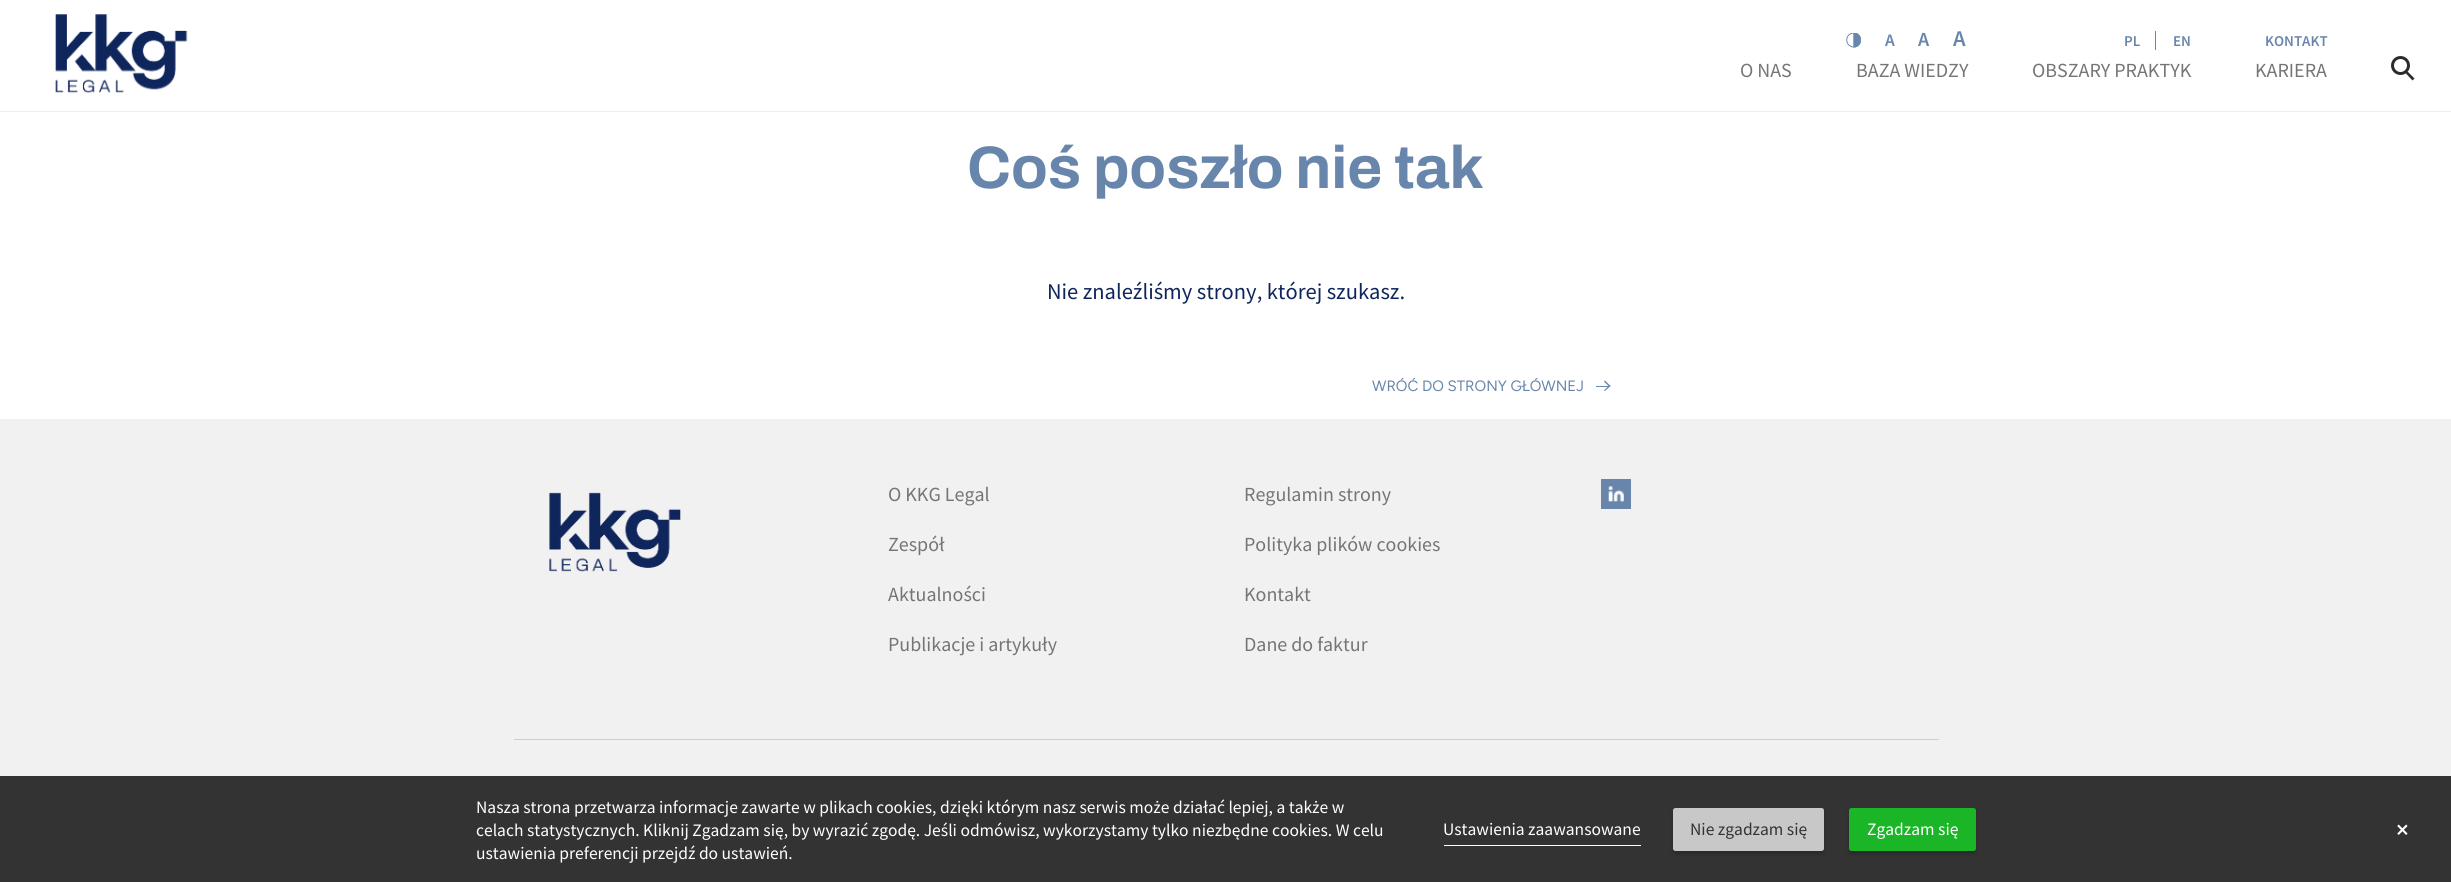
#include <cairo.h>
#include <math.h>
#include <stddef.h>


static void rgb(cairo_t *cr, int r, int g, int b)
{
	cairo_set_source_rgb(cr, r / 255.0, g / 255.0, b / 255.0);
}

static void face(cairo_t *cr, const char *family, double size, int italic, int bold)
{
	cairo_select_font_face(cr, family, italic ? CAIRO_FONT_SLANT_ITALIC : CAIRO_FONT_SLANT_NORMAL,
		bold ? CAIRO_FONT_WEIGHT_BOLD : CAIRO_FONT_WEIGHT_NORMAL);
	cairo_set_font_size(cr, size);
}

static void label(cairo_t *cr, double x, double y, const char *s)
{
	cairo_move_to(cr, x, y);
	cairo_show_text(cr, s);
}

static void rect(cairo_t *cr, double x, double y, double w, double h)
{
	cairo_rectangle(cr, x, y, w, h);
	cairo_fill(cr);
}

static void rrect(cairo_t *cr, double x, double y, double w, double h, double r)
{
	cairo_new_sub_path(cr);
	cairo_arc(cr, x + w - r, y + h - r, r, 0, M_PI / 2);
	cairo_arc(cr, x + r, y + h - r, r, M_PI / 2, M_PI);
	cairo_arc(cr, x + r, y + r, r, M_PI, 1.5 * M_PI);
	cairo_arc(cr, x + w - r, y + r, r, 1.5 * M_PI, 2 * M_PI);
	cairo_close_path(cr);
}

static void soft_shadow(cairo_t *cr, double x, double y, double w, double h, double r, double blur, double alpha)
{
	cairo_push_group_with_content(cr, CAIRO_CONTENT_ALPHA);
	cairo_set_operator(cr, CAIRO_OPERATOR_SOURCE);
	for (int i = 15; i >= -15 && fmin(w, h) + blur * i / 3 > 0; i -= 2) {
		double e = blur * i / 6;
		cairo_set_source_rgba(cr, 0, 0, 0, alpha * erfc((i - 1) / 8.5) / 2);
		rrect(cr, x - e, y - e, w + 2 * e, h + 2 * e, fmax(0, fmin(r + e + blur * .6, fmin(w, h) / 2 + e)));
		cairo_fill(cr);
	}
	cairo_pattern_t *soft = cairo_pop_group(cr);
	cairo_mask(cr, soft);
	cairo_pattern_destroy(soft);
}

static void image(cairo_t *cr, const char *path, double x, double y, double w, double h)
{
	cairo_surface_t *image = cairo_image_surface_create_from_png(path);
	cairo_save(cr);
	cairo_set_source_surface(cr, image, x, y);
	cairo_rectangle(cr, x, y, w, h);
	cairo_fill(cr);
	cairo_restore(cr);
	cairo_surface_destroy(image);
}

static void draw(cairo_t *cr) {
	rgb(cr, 255, 255, 255);
	cairo_paint(cr);
	rgb(cr, 238, 238, 238);
	rect(cr, 0, 111, 2451, 1);
	image(cr, "image0.png", 55, 14, 133, 79);
	image(cr, "image1.png", 1846, 33, 15, 15);
	face(cr, "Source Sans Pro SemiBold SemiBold", 17.5, 0, 0);
	rgb(cr, 104, 134, 172);
	label(cr, 1885, 46, "A");
	face(cr, "Source Sans Pro SemiBold SemiBold", 20, 0, 0);
	label(cr, 1918, 46, "A");
	face(cr, "Source Sans Pro SemiBold SemiBold", 22.5, 0, 0);
	label(cr, 1953, 46, "A");
	face(cr, "Source Sans Pro SemiBold SemiBold", 15, 0, 0);
	label(cr, 2124, 46, "PL");
	rect(cr, 2155, 31, 1, 19);
	label(cr, 2173, 46, "EN");
	label(cr, 2265, 46, "KONTAKT");
	face(cr, "Source Sans Pro", 20, 0, 0);
	rgb(cr, 117, 117, 117);
	label(cr, 1740, 77, "O NAS");
	label(cr, 1856, 77, "BAZA WIEDZY");
	label(cr, 2032, 77, "OBSZARY PRAKTYK");
	label(cr, 2255, 77, "KARIERA");
	cairo_new_path(cr);
	cairo_arc(cr, 2400.5, 65.5, 8, 0, 2 * M_PI);
	rgb(cr, 43, 43, 44);
	cairo_set_line_width(cr, 3);
	cairo_stroke(cr);
	cairo_new_path(cr);
	cairo_move_to(cr, 2407.5, 71.5);
	cairo_line_to(cr, 2414.5, 78.5);
	cairo_line_to(cr, 2412.5, 80.5);
	cairo_line_to(cr, 2405.5, 73);
	cairo_close_path(cr);
	cairo_fill(cr);
	face(cr, "Archivo", 60, 0, 1);
	rgb(cr, 104, 134, 172);
	label(cr, 967, 188, "Coś poszło nie tak");
	face(cr, "Source Sans Pro", 22.5, 0, 0);
	rgb(cr, 15, 38, 92);
	label(cr, 1047, 299, "Nie znaleźliśmy strony, której szukasz.");
	face(cr, "Figtree", 15, 0, 0);
	rgb(cr, 104, 134, 172);
	label(cr, 1372, 391, "WRÓĆ DO STRONY GŁÓWNEJ");
	rect(cr, 1596, 386, 13, 1);
	cairo_new_path(cr);
	cairo_move_to(cr, 1604, 381.5);
	cairo_line_to(cr, 1605, 380.5);
	cairo_line_to(cr, 1610.5, 386);
	cairo_line_to(cr, 1609.5, 387);
	cairo_close_path(cr);
	cairo_fill(cr);
	cairo_new_path(cr);
	cairo_move_to(cr, 1604, 390.5);
	cairo_line_to(cr, 1609.5, 385);
	cairo_line_to(cr, 1610.5, 386);
	cairo_line_to(cr, 1605, 391);
	cairo_close_path(cr);
	cairo_fill(cr);
	rgb(cr, 241, 241, 241);
	rect(cr, 0, 419, 2451, 357);
	image(cr, "image2.png", 549, 492, 132, 80);
	face(cr, "Source Sans Pro", 20, 0, 0);
	rgb(cr, 117, 117, 117);
	label(cr, 888, 501, "O KKG Legal");
	label(cr, 888, 551, "Zespół");
	label(cr, 888, 601, "Aktualności");
	label(cr, 888, 651, "Publikacje i artykuły");
	label(cr, 1244, 501, "Regulamin strony");
	label(cr, 1244, 551, "Polityka plików cookies");
	label(cr, 1244, 601, "Kontakt");
	label(cr, 1244, 651, "Dane do faktur");
	rgb(cr, 104, 134, 172);
	rect(cr, 1601, 479, 30, 30);
	image(cr, "image3.png", 1608, 486, 16, 16);
	rgb(cr, 204, 207, 207);
	rect(cr, 514, 739, 1425, 1);
	rgb(cr, 51, 51, 51);
	rect(cr, 0, 776, 2451, 106);
	face(cr, "Source Sans Pro", 17.5, 0, 0);
	rgb(cr, 255, 255, 255);
	label(cr, 476, 813, "Nasza strona przetwarza informacje zawarte w plikach cookies, dzięki którym nasz serwis może działać lepiej, a także w");
	label(cr, 476, 836, "celach statystycznych. Kliknij Zgadzam się, by wyrazić zgodę. Jeśli odmówisz, wykorzystamy tylko niezbędne cookies. W celu");
	label(cr, 476, 859, "ustawienia preferencji przejdź do ustawień.");
	rect(cr, 1444, 845, 197, 1);
	label(cr, 1443, 835, "Ustawienia zaawansowane");
	rgb(cr, 0, 0, 0);
	soft_shadow(cr, 1673, 810, 151, 44, 2.5, 2, 0.2);
	rgb(cr, 200, 200, 200);
	rrect(cr, 1673, 808, 151, 43, 2.5);
	cairo_fill(cr);
	rgb(cr, 51, 51, 51);
	label(cr, 1690, 835, "Nie zgadzam się");
	rgb(cr, 0, 0, 0);
	soft_shadow(cr, 1849, 810, 127, 44, 2.5, 2, 0.2);
	rgb(cr, 27, 182, 39);
	rrect(cr, 1849, 808, 127, 43, 2.5);
	cairo_fill(cr);
	rgb(cr, 255, 255, 255);
	label(cr, 1867, 835, "Zgadzam się");
	face(cr, "Source Sans Pro SemiBold SemiBold", 25, 0, 0);
	label(cr, 2396, 838, "×");
}

int main(void) {
	cairo_surface_t *surface = cairo_image_surface_create(CAIRO_FORMAT_RGB24, 2451, 882);
	cairo_t *cr = cairo_create(surface);
	cairo_font_options_t *options = cairo_font_options_create();
	cairo_font_options_set_hint_metrics(options, CAIRO_HINT_METRICS_OFF);
	cairo_font_options_set_hint_style(options, CAIRO_HINT_STYLE_NONE);
	cairo_set_font_options(cr, options);
	cairo_set_miter_limit(cr, 4);
	draw(cr);
	cairo_surface_write_to_png(surface, "render.png");
	cairo_font_options_destroy(options);
	cairo_destroy(cr);
	cairo_surface_destroy(surface);
	return 0;
}
